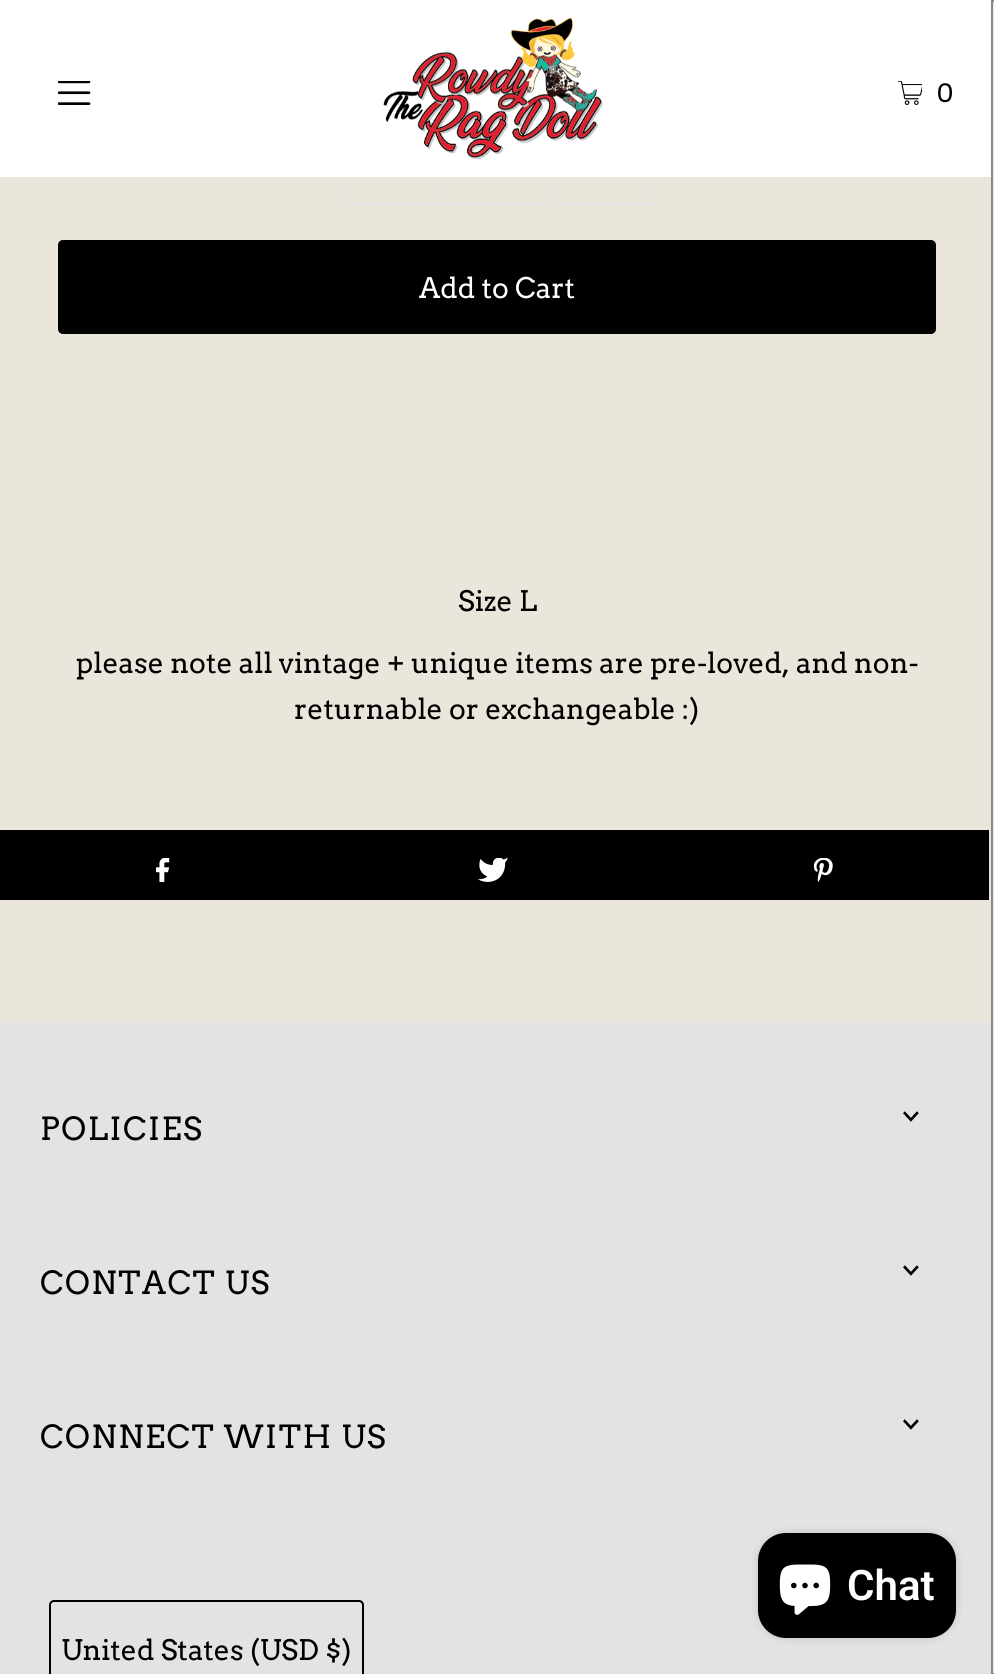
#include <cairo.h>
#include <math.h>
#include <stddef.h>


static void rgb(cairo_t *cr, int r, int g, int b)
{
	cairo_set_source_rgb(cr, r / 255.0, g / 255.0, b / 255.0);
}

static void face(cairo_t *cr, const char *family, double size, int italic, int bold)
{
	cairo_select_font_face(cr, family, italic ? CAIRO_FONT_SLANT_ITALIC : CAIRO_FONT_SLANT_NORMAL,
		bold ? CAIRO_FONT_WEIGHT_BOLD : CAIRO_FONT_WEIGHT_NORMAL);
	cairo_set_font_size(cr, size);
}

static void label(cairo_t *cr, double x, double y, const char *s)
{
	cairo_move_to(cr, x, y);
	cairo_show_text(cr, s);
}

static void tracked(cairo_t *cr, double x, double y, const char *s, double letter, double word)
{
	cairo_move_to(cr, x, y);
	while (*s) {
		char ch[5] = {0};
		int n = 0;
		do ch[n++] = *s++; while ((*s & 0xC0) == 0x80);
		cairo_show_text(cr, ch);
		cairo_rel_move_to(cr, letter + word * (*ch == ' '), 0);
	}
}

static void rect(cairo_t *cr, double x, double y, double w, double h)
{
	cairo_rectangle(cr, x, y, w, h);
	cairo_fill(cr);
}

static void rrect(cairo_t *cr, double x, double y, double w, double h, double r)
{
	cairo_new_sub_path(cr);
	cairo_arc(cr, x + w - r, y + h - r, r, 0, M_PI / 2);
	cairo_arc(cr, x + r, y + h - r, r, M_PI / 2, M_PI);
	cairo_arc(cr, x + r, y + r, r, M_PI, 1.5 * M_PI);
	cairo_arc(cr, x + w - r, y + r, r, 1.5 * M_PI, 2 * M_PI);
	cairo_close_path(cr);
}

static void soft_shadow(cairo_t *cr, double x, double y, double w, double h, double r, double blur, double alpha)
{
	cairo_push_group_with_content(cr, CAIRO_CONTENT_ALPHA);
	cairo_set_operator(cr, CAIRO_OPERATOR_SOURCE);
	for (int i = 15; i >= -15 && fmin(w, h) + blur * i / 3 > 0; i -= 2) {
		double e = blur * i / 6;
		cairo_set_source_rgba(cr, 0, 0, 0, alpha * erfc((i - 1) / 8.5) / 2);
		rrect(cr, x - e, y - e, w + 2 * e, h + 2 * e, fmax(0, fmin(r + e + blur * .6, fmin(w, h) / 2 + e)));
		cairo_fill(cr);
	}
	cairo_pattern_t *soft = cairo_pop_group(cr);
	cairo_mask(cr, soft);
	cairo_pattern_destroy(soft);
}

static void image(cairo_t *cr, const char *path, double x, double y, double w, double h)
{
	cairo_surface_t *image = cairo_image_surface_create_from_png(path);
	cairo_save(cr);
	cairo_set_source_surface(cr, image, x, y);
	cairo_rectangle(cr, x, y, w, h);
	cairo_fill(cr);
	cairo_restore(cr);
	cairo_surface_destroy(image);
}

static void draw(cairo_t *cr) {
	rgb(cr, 234, 230, 220);
	cairo_paint(cr);
	rgb(cr, 229, 229, 229);
	rect(cr, 340, 203, 96, 2);
	rgb(cr, 234, 230, 220);
	rrect(cr, 433, 125, 124, 79, 4);
	cairo_fill_preserve(cr);
	rgb(cr, 229, 229, 229);
	cairo_stroke(cr);
	rgb(cr, 255, 255, 255);
	rect(cr, 0, 0, 991, 177);
	image(cr, "image0.png", 58, 81, 33, 24);
	image(cr, "image1.png", 383, 17, 220, 143);
	image(cr, "image2.png", 898, 81, 24, 24);
	face(cr, "Arvo", 25, 0, 0);
	rgb(cr, 0, 0, 0);
	label(cr, 937, 102, "0");
	rgb(cr, 229, 229, 229);
	rect(cr, 340, 177, 2, 28);
	rect(cr, 653, 177, 2, 28);
	rect(cr, 558, 203, 97, 2);
	rgb(cr, 0, 0, 0);
	rrect(cr, 58, 240, 878, 94, 5);
	cairo_fill(cr);
	face(cr, "Arvo", 28.25, 0, 0);
	rgb(cr, 255, 255, 255);
	label(cr, 419, 298, "Add to Cart");
	rgb(cr, 0, 0, 0);
	label(cr, 458, 611, "Size L");
	label(cr, 76, 673, "please note all vintage + unique items are pre-loved, and non-");
	label(cr, 294, 719, "returnable or exchangeable :)");
	rect(cr, 0, 830, 989, 70);
	image(cr, "image3.png", 156, 858, 14, 24);
	image(cr, "image4.png", 478, 858, 30, 24);
	image(cr, "image5.png", 814, 858, 19, 24);
	rgb(cr, 227, 227, 227);
	rect(cr, 0, 1024, 991, 650);
	rgb(cr, 229, 229, 229);
	rect(cr, 0, 1022, 994, 2);
	face(cr, "Arvo", 31.75, 0, 0);
	rgb(cr, 0, 0, 0);
	tracked(cr, 40, 1140, "POLICIES", 1.6, 0);
	image(cr, "image6.png", 903, 1111, 16, 11);
	tracked(cr, 40, 1294, "CONTACT US", 1.6, 0);
	image(cr, "image6.png", 903, 1265, 16, 11);
	tracked(cr, 40, 1448, "CONNECT WITH US", 1.6, 0);
	image(cr, "image6.png", 903, 1419, 16, 11);
	rrect(cr, 50, 1601, 313, 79, 4);
	cairo_stroke(cr);
	face(cr, "Arvo", 28.25, 0, 0);
	label(cr, 61, 1660, "United States (USD $)");
	rgb(cr, 234, 230, 220);
	rect(cr, 993, 1022, 1, 2);
	cairo_rectangle(cr, 992, 1, 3, 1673);
	rgb(cr, 136, 136, 136);
	cairo_stroke(cr);
	rgb(cr, 0, 0, 0);
	soft_shadow(cr, 758, 1533, 198, 105, 28, 4.5, 0.15);
	rgb(cr, 0, 0, 0);
	rrect(cr, 758, 1533, 198, 105, 28);
	cairo_fill(cr);
	image(cr, "image7.png", 779, 1564, 52, 51);
	face(cr, "Roboto SemiBold", 42, 0, 0);
	rgb(cr, 255, 255, 255);
	label(cr, 847, 1600, "Chat");
}

int main(void) {
	cairo_surface_t *surface = cairo_image_surface_create(CAIRO_FORMAT_RGB24, 994, 1674);
	cairo_t *cr = cairo_create(surface);
	cairo_font_options_t *options = cairo_font_options_create();
	cairo_font_options_set_hint_metrics(options, CAIRO_HINT_METRICS_OFF);
	cairo_font_options_set_hint_style(options, CAIRO_HINT_STYLE_NONE);
	cairo_set_font_options(cr, options);
	cairo_set_miter_limit(cr, 4);
	draw(cr);
	cairo_surface_write_to_png(surface, "render.png");
	cairo_font_options_destroy(options);
	cairo_destroy(cr);
	cairo_surface_destroy(surface);
	return 0;
}
